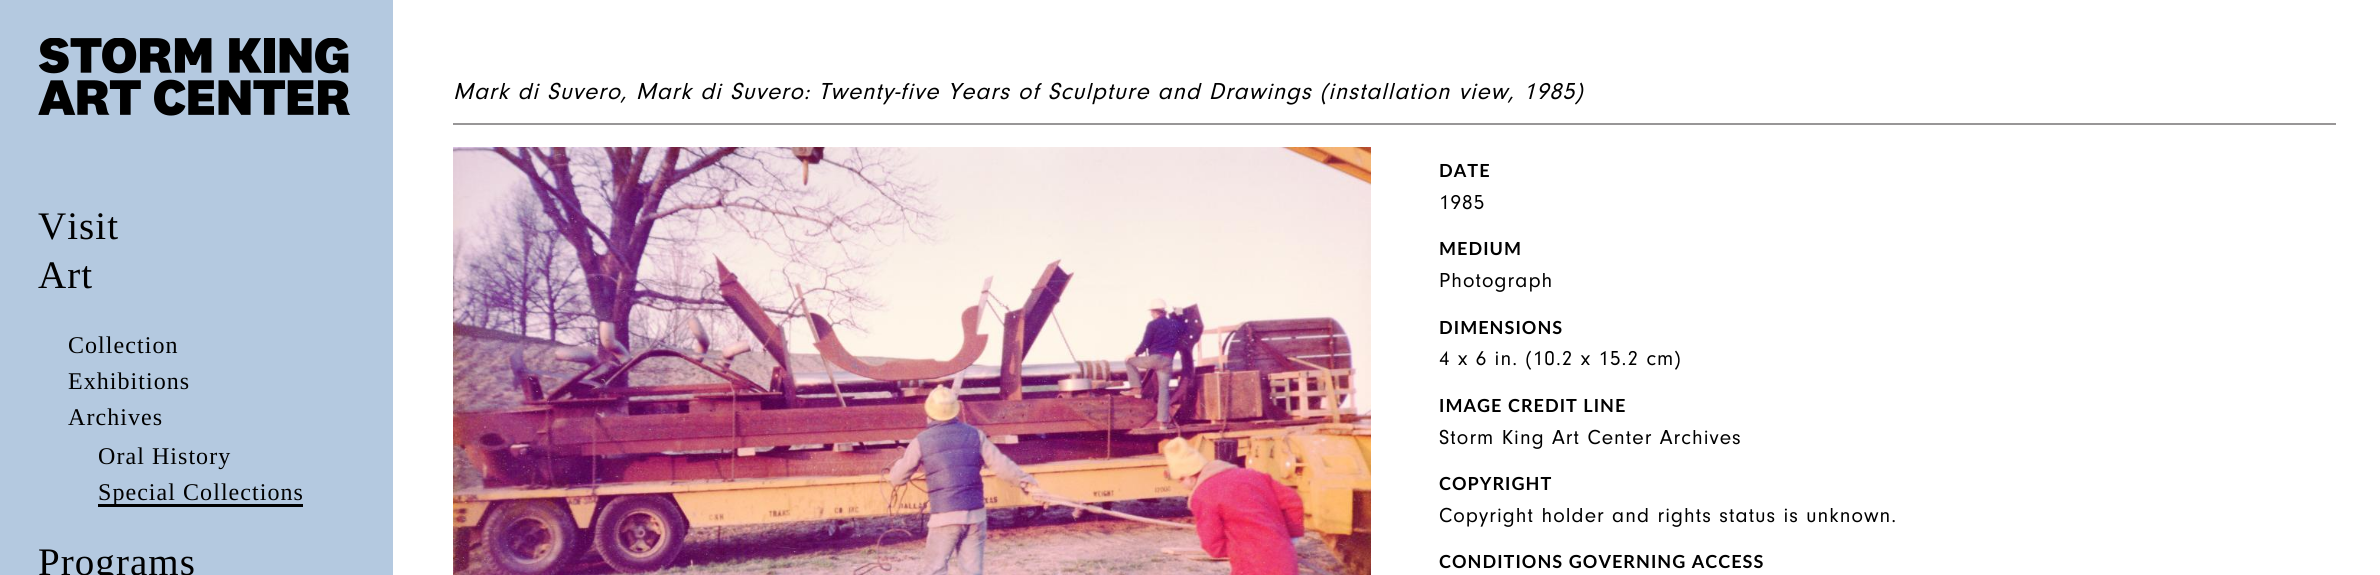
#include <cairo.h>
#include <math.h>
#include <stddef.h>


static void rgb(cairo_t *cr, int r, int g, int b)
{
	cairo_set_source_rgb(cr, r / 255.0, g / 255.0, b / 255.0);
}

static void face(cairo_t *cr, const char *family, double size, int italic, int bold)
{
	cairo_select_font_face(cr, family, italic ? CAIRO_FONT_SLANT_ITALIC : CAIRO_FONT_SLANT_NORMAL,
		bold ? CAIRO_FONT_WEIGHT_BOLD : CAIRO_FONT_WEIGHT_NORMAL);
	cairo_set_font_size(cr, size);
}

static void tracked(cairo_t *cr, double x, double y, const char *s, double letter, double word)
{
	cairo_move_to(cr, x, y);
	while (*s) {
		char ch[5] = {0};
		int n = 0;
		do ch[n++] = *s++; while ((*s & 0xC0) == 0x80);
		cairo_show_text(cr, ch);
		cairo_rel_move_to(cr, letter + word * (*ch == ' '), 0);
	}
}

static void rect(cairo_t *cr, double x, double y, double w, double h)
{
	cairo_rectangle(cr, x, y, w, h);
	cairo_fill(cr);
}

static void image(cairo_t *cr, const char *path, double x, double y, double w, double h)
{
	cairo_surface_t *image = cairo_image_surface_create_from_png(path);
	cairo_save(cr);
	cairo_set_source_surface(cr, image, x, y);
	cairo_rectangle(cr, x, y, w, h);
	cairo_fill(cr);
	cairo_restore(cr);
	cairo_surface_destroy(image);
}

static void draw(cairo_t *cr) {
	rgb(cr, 255, 255, 255);
	cairo_paint(cr);
	rgb(cr, 180, 201, 224);
	rect(cr, 0, 0, 393, 575);
	image(cr, "image0.png", 38, 38, 313, 78);
	face(cr, "Liberation Serif", 39, 0, 0);
	rgb(cr, 0, 0, 0);
	tracked(cr, 38, 239, "Visit", 1.05, 0);
	tracked(cr, 38, 288, "Art", 1.05, 0);
	face(cr, "Liberation Serif", 24, 0, 0);
	tracked(cr, 68, 353, "Collection", 1.05, 0);
	tracked(cr, 68, 389, "Exhibitions", 1.05, 0);
	tracked(cr, 68, 425, "Archives", 1.05, 0);
	tracked(cr, 98, 464, "Oral History", 1.05, 0);
	rect(cr, 98, 504, 205, 3);
	tracked(cr, 98, 500, "Special Collections", 1.05, 0);
	face(cr, "Liberation Serif", 39, 0, 0);
	tracked(cr, 38, 575, "Programs", 1.05, 0);
	face(cr, "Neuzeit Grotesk", 24, 1, 0);
	tracked(cr, 453, 99, "Mark di Suvero, Mark di Suvero: Twenty-five Years of Sculpture and Drawings (installation view, 1985)", 1.05, 0);
	rgb(cr, 152, 150, 151);
	rect(cr, 453, 123, 1883, 2);
	image(cr, "image1.png", 453, 147, 918, 428);
	face(cr, "Lato", 18, 0, 1);
	rgb(cr, 0, 0, 0);
	tracked(cr, 1439, 177, "DATE", 1.05, 0);
	face(cr, "Neuzeit Grotesk", 21, 0, 0);
	tracked(cr, 1439, 209, "1985", 1.05, 0);
	face(cr, "Lato", 18, 0, 1);
	tracked(cr, 1439, 255, "MEDIUM", 1.05, 0);
	face(cr, "Neuzeit Grotesk", 21, 0, 0);
	tracked(cr, 1439, 287, "Photograph", 1.05, 0);
	face(cr, "Lato", 18, 0, 1);
	tracked(cr, 1439, 334, "DIMENSIONS", 1.05, 0);
	face(cr, "Neuzeit Grotesk", 21, 0, 0);
	tracked(cr, 1439, 365, "4 x 6 in. (10.2 x 15.2 cm)", 1.05, 0);
	face(cr, "Lato", 18, 0, 1);
	tracked(cr, 1439, 412, "IMAGE CREDIT LINE", 1.05, 0);
	face(cr, "Neuzeit Grotesk", 21, 0, 0);
	tracked(cr, 1439, 444, "Storm King Art Center Archives", 1.05, 0);
	face(cr, "Lato", 18, 0, 1);
	tracked(cr, 1439, 490, "COPYRIGHT", 1.05, 0);
	face(cr, "Neuzeit Grotesk", 21, 0, 0);
	tracked(cr, 1439, 522, "Copyright holder and rights status is unknown.", 1.05, 0);
	face(cr, "Lato", 18, 0, 1);
	tracked(cr, 1439, 568, "CONDITIONS GOVERNING ACCESS", 1.05, 0);
}

int main(void) {
	cairo_surface_t *surface = cairo_image_surface_create(CAIRO_FORMAT_RGB24, 2380, 575);
	cairo_t *cr = cairo_create(surface);
	cairo_font_options_t *options = cairo_font_options_create();
	cairo_font_options_set_hint_metrics(options, CAIRO_HINT_METRICS_OFF);
	cairo_font_options_set_hint_style(options, CAIRO_HINT_STYLE_NONE);
	cairo_set_font_options(cr, options);
	cairo_set_miter_limit(cr, 4);
	draw(cr);
	cairo_surface_write_to_png(surface, "render.png");
	cairo_font_options_destroy(options);
	cairo_destroy(cr);
	cairo_surface_destroy(surface);
	return 0;
}
